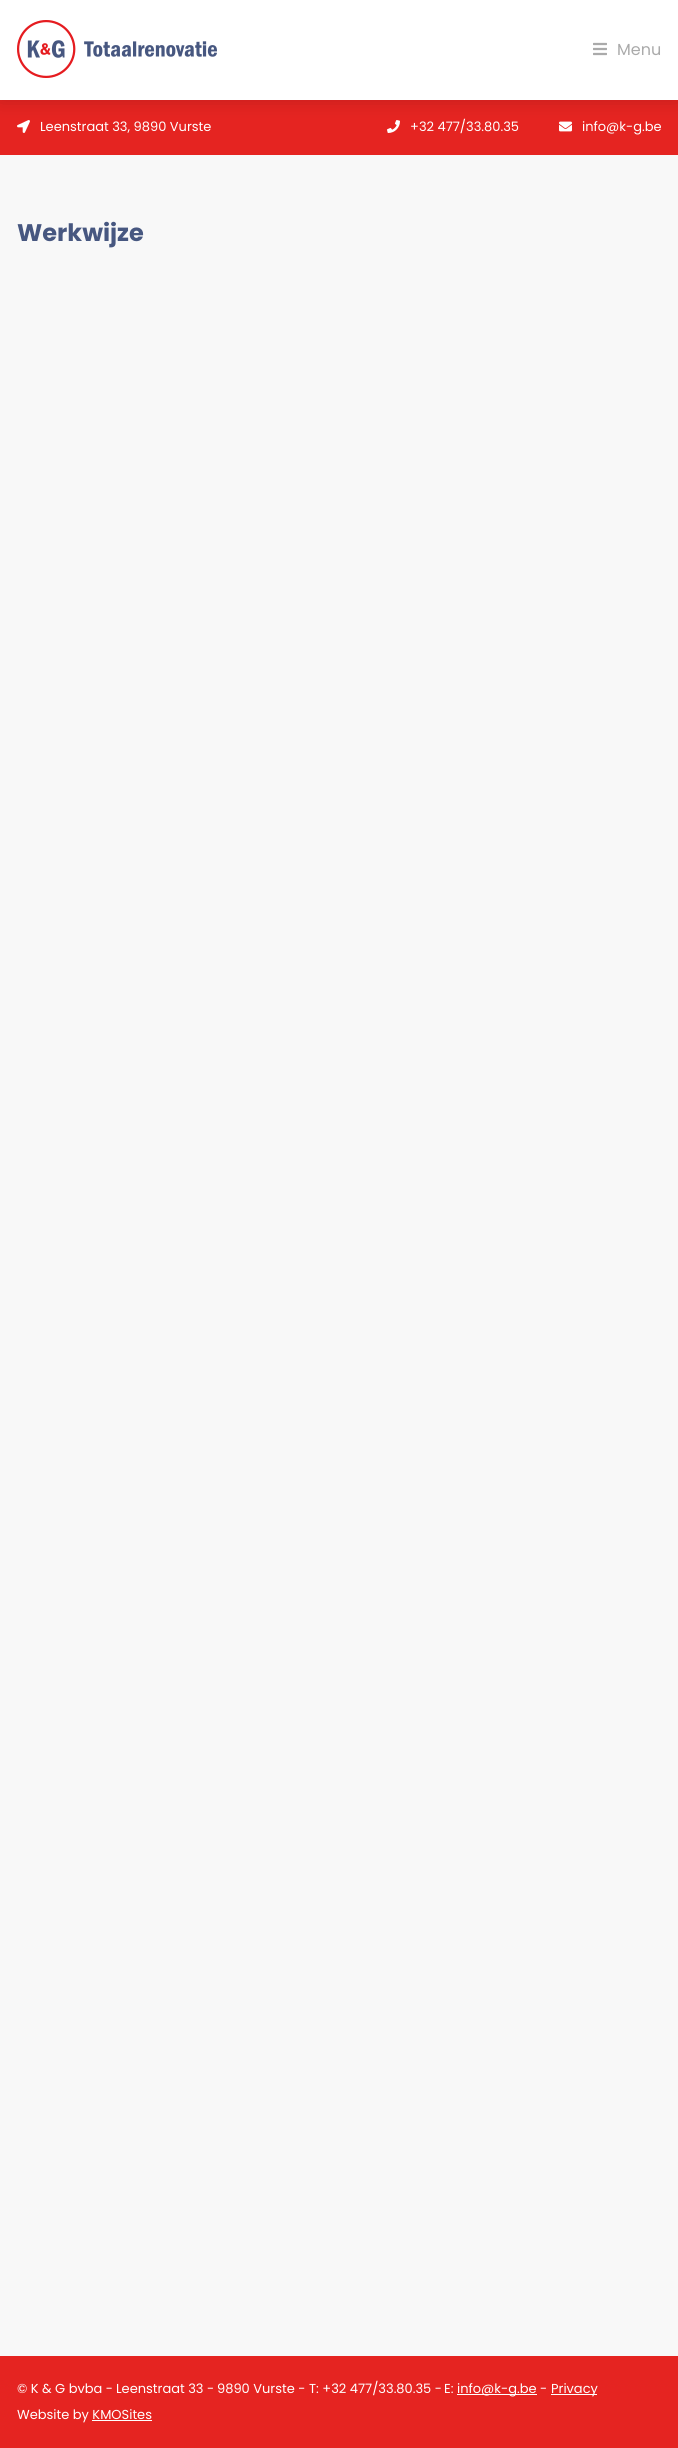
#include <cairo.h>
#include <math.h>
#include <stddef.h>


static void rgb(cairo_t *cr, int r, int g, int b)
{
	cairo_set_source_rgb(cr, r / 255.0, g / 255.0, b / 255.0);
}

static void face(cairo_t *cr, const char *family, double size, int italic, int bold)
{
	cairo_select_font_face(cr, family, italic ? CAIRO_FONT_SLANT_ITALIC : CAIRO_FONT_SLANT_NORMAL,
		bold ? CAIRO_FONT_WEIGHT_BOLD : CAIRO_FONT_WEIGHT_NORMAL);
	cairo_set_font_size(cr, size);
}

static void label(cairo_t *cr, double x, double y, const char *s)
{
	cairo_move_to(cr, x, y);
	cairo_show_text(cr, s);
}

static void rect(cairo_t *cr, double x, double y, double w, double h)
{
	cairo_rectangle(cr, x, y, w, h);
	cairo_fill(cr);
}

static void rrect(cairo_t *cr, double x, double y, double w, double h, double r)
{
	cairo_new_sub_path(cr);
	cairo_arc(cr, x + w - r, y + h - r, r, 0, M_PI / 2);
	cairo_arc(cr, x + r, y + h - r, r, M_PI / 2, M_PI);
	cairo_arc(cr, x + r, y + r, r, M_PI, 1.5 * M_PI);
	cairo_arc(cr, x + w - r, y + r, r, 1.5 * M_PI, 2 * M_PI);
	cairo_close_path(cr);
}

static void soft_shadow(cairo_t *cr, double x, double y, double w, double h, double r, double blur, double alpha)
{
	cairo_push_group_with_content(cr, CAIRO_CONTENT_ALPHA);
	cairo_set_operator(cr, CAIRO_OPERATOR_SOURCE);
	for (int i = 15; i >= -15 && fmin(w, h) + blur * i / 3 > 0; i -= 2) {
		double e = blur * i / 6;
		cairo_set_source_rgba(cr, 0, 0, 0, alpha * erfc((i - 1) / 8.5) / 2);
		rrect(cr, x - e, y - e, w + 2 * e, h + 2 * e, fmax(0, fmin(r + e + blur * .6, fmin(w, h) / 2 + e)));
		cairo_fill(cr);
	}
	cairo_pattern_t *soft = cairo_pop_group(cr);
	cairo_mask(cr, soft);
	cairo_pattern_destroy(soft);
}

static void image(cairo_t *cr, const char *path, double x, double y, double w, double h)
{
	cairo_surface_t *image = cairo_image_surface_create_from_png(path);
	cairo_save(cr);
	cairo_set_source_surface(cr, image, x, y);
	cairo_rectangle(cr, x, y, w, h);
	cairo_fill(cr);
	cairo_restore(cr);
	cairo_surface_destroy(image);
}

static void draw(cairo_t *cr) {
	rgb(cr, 248, 248, 248);
	cairo_paint(cr);
	rgb(cr, 229, 36, 33);
	rect(cr, 0, 100, 678, 55);
	image(cr, "image2.png", 17, 120, 13, 13);
	image(cr, "image3.png", 387, 120, 13, 13);
	image(cr, "image4.png", 559, 121, 13, 11);
	rgb(cr, 0, 0, 0);
	soft_shadow(cr, 0, 0, 678, 100, 0, 10, 0.15);
	rgb(cr, 255, 255, 255);
	rect(cr, 0, 0, 678, 100);
	image(cr, "image0.png", 17, 20, 200, 58);
	image(cr, "image1.png", 593, 42, 14, 14);
	face(cr, "Poppins", 16, 0, 0);
	rgb(cr, 170, 170, 170);
	label(cr, 617, 55, "Menu");
	face(cr, "Poppins", 13, 0, 0);
	rgb(cr, 255, 255, 255);
	label(cr, 40, 131, "Leenstraat 33, 9890 Vurste");
	label(cr, 410, 131, "+32 477/33.80.35");
	label(cr, 582, 131, "info@k-g.be");
	face(cr, "Poppins", 24, 0, 1);
	rgb(cr, 71, 87, 128);
	label(cr, 17, 241, "Werkwijze");
	rgb(cr, 229, 36, 33);
	rect(cr, 0, 2356, 678, 92);
	face(cr, "Poppins", 13, 0, 0);
	rgb(cr, 255, 255, 255);
	label(cr, 17, 2393, "© K & G bvba -");
	label(cr, 116, 2393, "Leenstraat 33 -");
	label(cr, 217, 2393, "9890 Vurste -");
	label(cr, 309, 2393, "T: +32 477/33.80.35 -");
	label(cr, 444, 2393, "E:");
	rect(cr, 457, 2394, 80, 1);
	label(cr, 457, 2393, "info@k-g.be -");
	rect(cr, 551, 2394, 46, 1);
	label(cr, 551, 2393, "Privacy");
	label(cr, 17, 2419, "Website by KMOSites");
	rect(cr, 92, 2420, 60, 1);
}

int main(void) {
	cairo_surface_t *surface = cairo_image_surface_create(CAIRO_FORMAT_RGB24, 678, 2448);
	cairo_t *cr = cairo_create(surface);
	cairo_font_options_t *options = cairo_font_options_create();
	cairo_font_options_set_hint_metrics(options, CAIRO_HINT_METRICS_OFF);
	cairo_font_options_set_hint_style(options, CAIRO_HINT_STYLE_NONE);
	cairo_set_font_options(cr, options);
	cairo_set_miter_limit(cr, 4);
	draw(cr);
	cairo_surface_write_to_png(surface, "render.png");
	cairo_font_options_destroy(options);
	cairo_destroy(cr);
	cairo_surface_destroy(surface);
	return 0;
}
